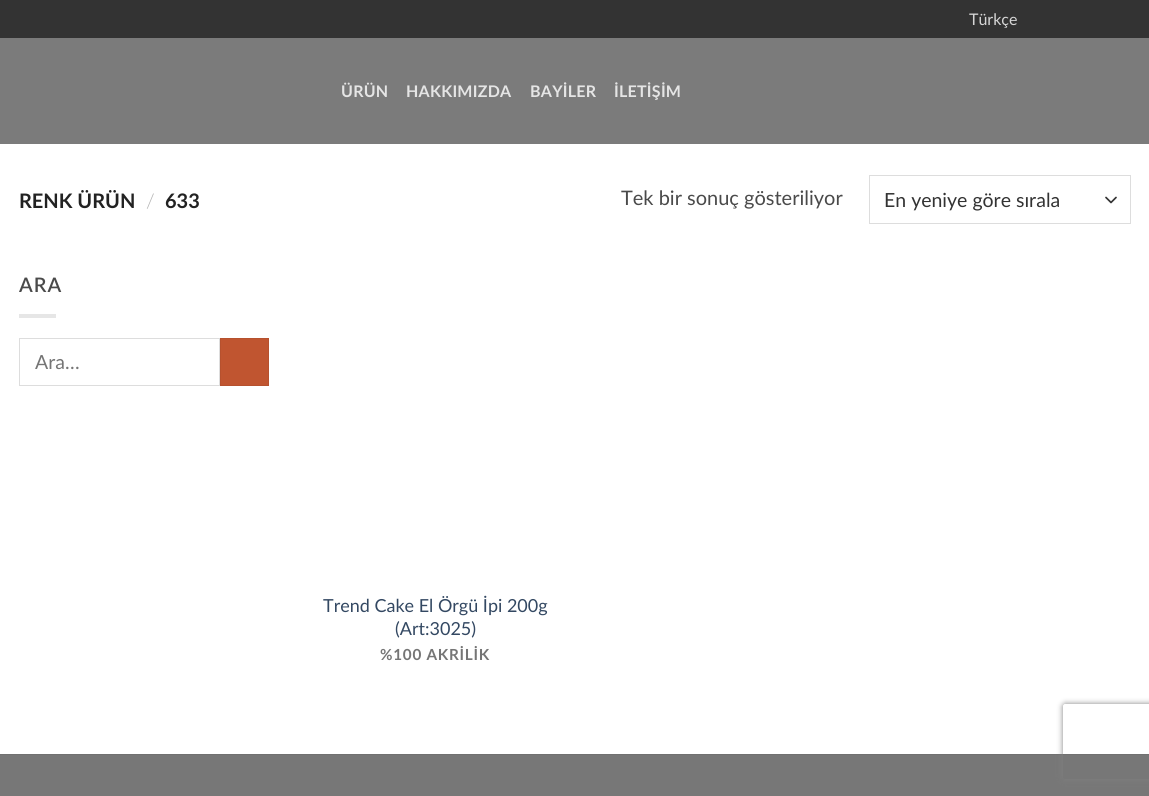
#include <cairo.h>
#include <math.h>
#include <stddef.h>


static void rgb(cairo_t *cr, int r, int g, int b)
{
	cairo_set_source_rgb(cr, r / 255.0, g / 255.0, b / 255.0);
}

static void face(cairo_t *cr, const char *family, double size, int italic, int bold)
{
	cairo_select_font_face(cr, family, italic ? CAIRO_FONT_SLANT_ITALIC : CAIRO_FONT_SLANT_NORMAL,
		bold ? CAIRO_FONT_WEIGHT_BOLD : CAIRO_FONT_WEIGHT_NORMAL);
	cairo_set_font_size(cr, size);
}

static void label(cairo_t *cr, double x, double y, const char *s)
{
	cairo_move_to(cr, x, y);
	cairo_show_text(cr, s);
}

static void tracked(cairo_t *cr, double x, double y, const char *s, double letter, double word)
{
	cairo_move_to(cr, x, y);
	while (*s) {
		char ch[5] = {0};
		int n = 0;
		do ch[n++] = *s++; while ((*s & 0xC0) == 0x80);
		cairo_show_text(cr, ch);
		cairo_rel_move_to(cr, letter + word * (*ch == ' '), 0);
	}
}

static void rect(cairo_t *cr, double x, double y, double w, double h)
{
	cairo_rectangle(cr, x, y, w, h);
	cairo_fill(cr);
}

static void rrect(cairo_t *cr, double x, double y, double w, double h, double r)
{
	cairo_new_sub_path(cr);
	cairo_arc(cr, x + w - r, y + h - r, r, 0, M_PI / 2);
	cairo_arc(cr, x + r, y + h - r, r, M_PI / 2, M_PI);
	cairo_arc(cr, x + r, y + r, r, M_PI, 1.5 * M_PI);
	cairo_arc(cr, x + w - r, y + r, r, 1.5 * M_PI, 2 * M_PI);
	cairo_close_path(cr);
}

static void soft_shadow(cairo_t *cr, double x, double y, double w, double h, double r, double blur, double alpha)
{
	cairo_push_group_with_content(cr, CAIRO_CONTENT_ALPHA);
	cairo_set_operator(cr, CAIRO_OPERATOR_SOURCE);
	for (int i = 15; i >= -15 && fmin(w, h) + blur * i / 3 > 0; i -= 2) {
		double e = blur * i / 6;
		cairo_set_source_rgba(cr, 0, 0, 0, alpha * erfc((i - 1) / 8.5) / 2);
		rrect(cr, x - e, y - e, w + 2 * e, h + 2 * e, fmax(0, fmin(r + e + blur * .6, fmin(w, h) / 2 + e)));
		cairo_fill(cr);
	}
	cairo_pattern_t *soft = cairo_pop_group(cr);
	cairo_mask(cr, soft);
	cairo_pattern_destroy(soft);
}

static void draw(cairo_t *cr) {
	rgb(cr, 255, 255, 255);
	cairo_paint(cr);
	rgb(cr, 51, 51, 51);
	rect(cr, 0, 0, 1149, 38);
	face(cr, "Lato", 16, 0, 0);
	rgb(cr, 214, 214, 214);
	label(cr, 969, 25, "Türkçe");
	rgb(cr, 123, 123, 123);
	rect(cr, 0, 38, 1149, 106);
	face(cr, "Lato", 16, 0, 1);
	rgb(cr, 229, 229, 229);
	tracked(cr, 341, 97, "ÜRÜN", 0.25, 0);
	tracked(cr, 406, 97, "HAKKIMIZDA", 0.25, 0);
	tracked(cr, 530, 97, "BAYİLER", 0.25, 0);
	tracked(cr, 614, 97, "İLETİŞİM", 0.25, 0);
	face(cr, "Lato", 20, 0, 1);
	rgb(cr, 34, 34, 34);
	label(cr, 19, 208, "RENK ÜRÜN");
	face(cr, "Lato Light", 20, 0, 0);
	rgb(cr, 178, 178, 178);
	label(cr, 146, 208, "/");
	face(cr, "Lato", 20, 0, 1);
	rgb(cr, 34, 34, 34);
	label(cr, 165, 208, "633");
	face(cr, "Lato", 20, 0, 0);
	rgb(cr, 74, 74, 74);
	label(cr, 621, 205, "Tek bir sonuç gösteriliyor");
	cairo_new_path(cr);
	cairo_move_to(cr, 1106, 197.5);
	cairo_line_to(cr, 1111, 202.5);
	cairo_line_to(cr, 1116, 197.5);
	rgb(cr, 51, 51, 51);
	cairo_set_line_width(cr, 1.7);
	cairo_set_line_cap(cr, CAIRO_LINE_CAP_ROUND);
	cairo_set_line_join(cr, CAIRO_LINE_JOIN_ROUND);
	cairo_stroke(cr);
	cairo_rectangle(cr, 869.5, 175.5, 261, 48);
	rgb(cr, 221, 221, 221);
	cairo_set_line_width(cr, 1);
	cairo_set_line_cap(cr, CAIRO_LINE_CAP_BUTT);
	cairo_set_line_join(cr, CAIRO_LINE_JOIN_MITER);
	cairo_stroke(cr);
	face(cr, "Lato", 19.5, 0, 0);
	rgb(cr, 51, 51, 51);
	label(cr, 884, 207, "En yeniye göre sırala");
	face(cr, "Lato SemiBold", 20, 0, 0);
	rgb(cr, 74, 74, 74);
	tracked(cr, 19, 292, "ARA", 1, 0);
	rgb(cr, 230, 230, 230);
	rect(cr, 19, 314, 37, 4);
	cairo_rectangle(cr, 19.5, 338.5, 200, 47);
	rgb(cr, 221, 221, 221);
	cairo_stroke(cr);
	face(cr, "Lato", 19.5, 0, 0);
	rgb(cr, 117, 117, 117);
	label(cr, 35, 369, "Ara…");
	rgb(cr, 192, 85, 48);
	cairo_rectangle(cr, 220.5, 338.5, 48, 47);
	cairo_fill_preserve(cr);
	rgb(cr, 182, 81, 46);
	cairo_stroke(cr);
	face(cr, "Lato", 18, 0, 0);
	rgb(cr, 51, 72, 98);
	label(cr, 323, 612, "Trend Cake El Örgü İpi 200g");
	label(cr, 395, 635, "(Art:3025)");
	face(cr, "Lato", 15.25, 0, 1);
	rgb(cr, 117, 117, 117);
	tracked(cr, 380, 660, "%100 AKRİLİK", 0.75, 0);
	rgb(cr, 119, 119, 119);
	rect(cr, 0, 755, 1149, 41);
	rgb(cr, 113, 113, 113);
	rect(cr, 0, 754, 1149, 1);
	cairo_save(cr);
	cairo_set_fill_rule(cr, CAIRO_FILL_RULE_EVEN_ODD);
	cairo_new_path(cr);
	cairo_move_to(cr, 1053, 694);
	cairo_line_to(cr, 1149, 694);
	cairo_line_to(cr, 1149, 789);
	cairo_line_to(cr, 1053, 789);
	cairo_close_path(cr);
	cairo_move_to(cr, 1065.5, 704);
	cairo_line_to(cr, 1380.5, 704);
	cairo_curve_to(cr, 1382, 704, 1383, 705, 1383, 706.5);
	cairo_line_to(cr, 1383, 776.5);
	cairo_curve_to(cr, 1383, 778, 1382, 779, 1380.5, 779);
	cairo_line_to(cr, 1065.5, 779);
	cairo_curve_to(cr, 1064, 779, 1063, 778, 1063, 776.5);
	cairo_line_to(cr, 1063, 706.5);
	cairo_curve_to(cr, 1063, 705, 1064, 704, 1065.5, 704);
	cairo_close_path(cr);
	cairo_clip(cr);
	rgb(cr, 128, 128, 128);
	soft_shadow(cr, 1063, 704, 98, 75, 2.5, 3, 1);
	cairo_restore(cr);
}

int main(void) {
	cairo_surface_t *surface = cairo_image_surface_create(CAIRO_FORMAT_RGB24, 1149, 796);
	cairo_t *cr = cairo_create(surface);
	cairo_font_options_t *options = cairo_font_options_create();
	cairo_font_options_set_hint_metrics(options, CAIRO_HINT_METRICS_OFF);
	cairo_font_options_set_hint_style(options, CAIRO_HINT_STYLE_NONE);
	cairo_set_font_options(cr, options);
	cairo_set_miter_limit(cr, 4);
	draw(cr);
	cairo_surface_write_to_png(surface, "render.png");
	cairo_font_options_destroy(options);
	cairo_destroy(cr);
	cairo_surface_destroy(surface);
	return 0;
}
